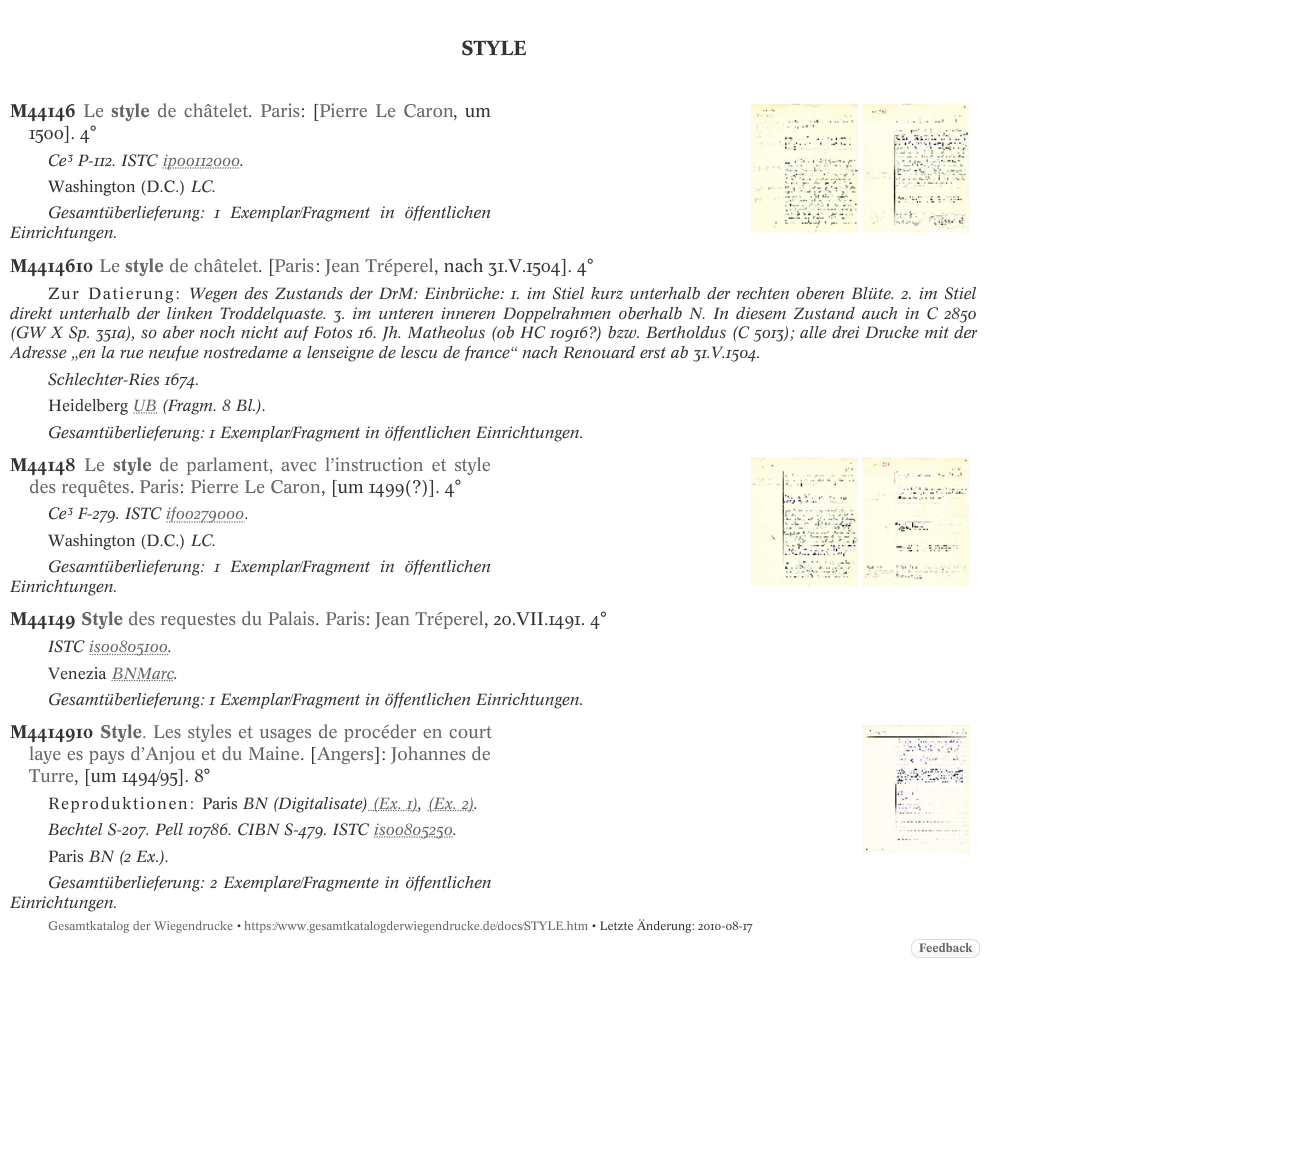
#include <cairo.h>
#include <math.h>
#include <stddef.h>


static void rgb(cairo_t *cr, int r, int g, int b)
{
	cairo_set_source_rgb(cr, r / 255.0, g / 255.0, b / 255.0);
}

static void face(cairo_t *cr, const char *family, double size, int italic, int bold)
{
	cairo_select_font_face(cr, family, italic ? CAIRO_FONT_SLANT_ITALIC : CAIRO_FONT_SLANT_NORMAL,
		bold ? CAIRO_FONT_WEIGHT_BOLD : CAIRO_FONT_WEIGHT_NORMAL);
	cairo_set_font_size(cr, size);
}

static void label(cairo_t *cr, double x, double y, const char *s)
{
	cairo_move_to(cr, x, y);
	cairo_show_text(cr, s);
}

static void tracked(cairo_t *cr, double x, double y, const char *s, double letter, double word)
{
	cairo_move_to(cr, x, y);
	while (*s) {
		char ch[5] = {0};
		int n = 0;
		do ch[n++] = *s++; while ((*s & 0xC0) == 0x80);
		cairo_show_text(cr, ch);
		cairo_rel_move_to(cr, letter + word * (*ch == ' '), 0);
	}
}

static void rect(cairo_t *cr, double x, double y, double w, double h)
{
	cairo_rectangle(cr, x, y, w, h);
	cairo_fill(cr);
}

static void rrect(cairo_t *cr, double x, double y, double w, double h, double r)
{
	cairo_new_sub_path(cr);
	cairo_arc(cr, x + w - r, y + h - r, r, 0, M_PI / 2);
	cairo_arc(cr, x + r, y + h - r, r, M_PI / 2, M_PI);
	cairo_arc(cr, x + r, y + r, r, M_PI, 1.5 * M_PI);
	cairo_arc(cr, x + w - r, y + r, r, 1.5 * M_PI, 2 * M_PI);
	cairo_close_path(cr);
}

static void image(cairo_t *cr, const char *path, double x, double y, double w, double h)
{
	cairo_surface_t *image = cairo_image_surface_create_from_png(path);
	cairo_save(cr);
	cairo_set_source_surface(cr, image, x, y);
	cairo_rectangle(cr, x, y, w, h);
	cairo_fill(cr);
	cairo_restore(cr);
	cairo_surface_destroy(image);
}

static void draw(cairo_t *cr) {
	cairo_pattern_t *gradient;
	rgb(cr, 255, 255, 255);
	cairo_paint(cr);
	face(cr, "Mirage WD", 20, 0, 1);
	rgb(cr, 51, 51, 51);
	label(cr, 461, 55, "STYLE");
	face(cr, "Mirage WD", 18, 0, 1);
	label(cr, 10, 117, "M44146");
	face(cr, "Mirage WD", 18, 0, 0);
	rgb(cr, 102, 102, 102);
	label(cr, 83, 117, "Le");
	face(cr, "Mirage WD", 18, 0, 1);
	label(cr, 111, 117, "style");
	face(cr, "Mirage WD", 18, 0, 0);
	tracked(cr, 157, 117, "de châtelet", 0, 2);
	rgb(cr, 51, 51, 51);
	label(cr, 248, 117, ".");
	rgb(cr, 102, 102, 102);
	label(cr, 260, 117, "Paris");
	rgb(cr, 51, 51, 51);
	tracked(cr, 300, 117, ": [", 0, 2);
	rgb(cr, 102, 102, 102);
	label(cr, 319, 117, "Pierre");
	tracked(cr, 375, 117, "Le Caron", 0, 2);
	rgb(cr, 51, 51, 51);
	tracked(cr, 453, 117, ", um", 0, 2);
	label(cr, 29, 139, "1500]. 4°");
	face(cr, "Mirage WD", 16, 1, 0);
	label(cr, 48, 166, "Ce³ P-112. ISTC");
	cairo_new_path(cr);
	cairo_move_to(cr, 162.5, 168);
	cairo_line_to(cr, 240, 168);
	rgb(cr, 102, 102, 102);
	cairo_set_line_width(cr, 1.2);
	cairo_set_dash(cr, (double[]){1.25, 1.25}, 2, 0);
	cairo_stroke(cr);
	label(cr, 163, 166, "ip00112000");
	rgb(cr, 51, 51, 51);
	label(cr, 240, 166, ".");
	face(cr, "Mirage WD", 16, 0, 0);
	label(cr, 48, 192, "Washington (D.C.)");
	face(cr, "Mirage WD", 16, 1, 0);
	label(cr, 191, 192, "LC.");
	tracked(cr, 48, 218, "Gesamtüberlieferung: 1 Exemplar/Fragment in öffentlichen", 0, 5);
	label(cr, 10, 238, "Einrichtungen.");
	image(cr, "image0.png", 751, 103, 108, 130);
	image(cr, "image1.png", 862, 103, 108, 130);
	face(cr, "Mirage WD", 18, 0, 1);
	label(cr, 10, 272, "M4414610");
	face(cr, "Mirage WD", 18, 0, 0);
	rgb(cr, 102, 102, 102);
	label(cr, 99, 272, "Le");
	face(cr, "Mirage WD", 18, 0, 1);
	label(cr, 125, 272, "style");
	face(cr, "Mirage WD", 18, 0, 0);
	label(cr, 169, 272, "de châtelet");
	rgb(cr, 51, 51, 51);
	label(cr, 258, 272, ". [");
	rgb(cr, 102, 102, 102);
	label(cr, 274, 272, "Paris");
	rgb(cr, 51, 51, 51);
	label(cr, 315, 272, ":");
	rgb(cr, 102, 102, 102);
	label(cr, 325, 272, "Jean Tréperel");
	rgb(cr, 51, 51, 51);
	label(cr, 434, 272, ", nach 31.V.1504]. 4°");
	face(cr, "Mirage WD", 16, 0, 0);
	tracked(cr, 48, 299, "Zur Datierung:", 1.6, 1.5);
	face(cr, "Mirage WD", 16, 1, 0);
	tracked(cr, 189, 299, "Wegen des Zustands der DrM: Einbrüche: 1. im Stiel kurz unterhalb der rechten oberen Blüte. 2. im Stiel", 0, 1.5);
	tracked(cr, 10, 319, "direkt unterhalb der linken Troddelquaste. 3. im unteren inneren Doppelrahmen oberhalb N. In diesem Zustand auch in C 2850", 0, 1.9);
	tracked(cr, 10, 338, "(GW X Sp. 351a), so aber noch nicht auf Fotos 16. Jh. Matheolus (ob HC 10916?) bzw. Bertholdus (C 5013); alle drei Drucke mit der", 0, 0.5);
	label(cr, 10, 358, "Adresse „en la rue neufue nostredame a lenseigne de lescu de france“ nach Renouard erst ab 31.V.1504.");
	label(cr, 48, 385, "Schlechter-Ries 1674.");
	face(cr, "Mirage WD", 16, 0, 0);
	label(cr, 48, 411, "Heidelberg");
	face(cr, "Mirage WD", 16, 1, 0);
	rgb(cr, 102, 102, 102);
	label(cr, 133, 411, "UB");
	cairo_new_path(cr);
	cairo_move_to(cr, 133.5, 413);
	cairo_line_to(cr, 157.5, 413);
	cairo_stroke(cr);
	rgb(cr, 51, 51, 51);
	label(cr, 162, 411, "(Fragm. 8 Bl.).");
	label(cr, 48, 438, "Gesamtüberlieferung: 1 Exemplar/Fragment in öffentlichen Einrichtungen.");
	face(cr, "Mirage WD", 18, 0, 1);
	label(cr, 10, 471, "M44148");
	face(cr, "Mirage WD", 18, 0, 0);
	rgb(cr, 102, 102, 102);
	label(cr, 84, 471, "Le");
	face(cr, "Mirage WD", 18, 0, 1);
	label(cr, 113, 471, "style");
	face(cr, "Mirage WD", 18, 0, 0);
	tracked(cr, 159, 471, "de parlament, avec l’instruction et style", 0, 2.5);
	label(cr, 29, 493, "des requêtes");
	rgb(cr, 51, 51, 51);
	label(cr, 130, 493, ".");
	rgb(cr, 102, 102, 102);
	label(cr, 139, 493, "Paris");
	rgb(cr, 51, 51, 51);
	label(cr, 179, 493, ":");
	rgb(cr, 102, 102, 102);
	label(cr, 190, 493, "Pierre Le Caron");
	rgb(cr, 51, 51, 51);
	label(cr, 321, 493, ", [um 1499(?)]. 4°");
	face(cr, "Mirage WD", 16, 1, 0);
	label(cr, 48, 519, "Ce³ F-279. ISTC");
	cairo_new_path(cr);
	cairo_move_to(cr, 166.5, 522);
	cairo_line_to(cr, 244.5, 522);
	rgb(cr, 102, 102, 102);
	cairo_stroke(cr);
	label(cr, 166, 519, "if00279000");
	rgb(cr, 51, 51, 51);
	label(cr, 245, 519, ".");
	face(cr, "Mirage WD", 16, 0, 0);
	label(cr, 48, 546, "Washington (D.C.)");
	face(cr, "Mirage WD", 16, 1, 0);
	label(cr, 191, 546, "LC.");
	tracked(cr, 48, 572, "Gesamtüberlieferung: 1 Exemplar/Fragment in öffentlichen", 0, 5);
	label(cr, 10, 592, "Einrichtungen.");
	image(cr, "image2.png", 751, 457, 108, 130);
	image(cr, "image3.png", 862, 457, 107, 130);
	face(cr, "Mirage WD", 18, 0, 1);
	label(cr, 10, 625, "M44149");
	rgb(cr, 102, 102, 102);
	label(cr, 81, 625, "Style");
	face(cr, "Mirage WD", 18, 0, 0);
	label(cr, 128, 625, "des requestes du Palais");
	rgb(cr, 51, 51, 51);
	label(cr, 315, 625, ".");
	rgb(cr, 102, 102, 102);
	label(cr, 325, 625, "Paris");
	rgb(cr, 51, 51, 51);
	label(cr, 365, 625, ":");
	rgb(cr, 102, 102, 102);
	label(cr, 375, 625, "Jean Tréperel");
	rgb(cr, 51, 51, 51);
	label(cr, 484, 625, ", 20.VII.1491. 4°");
	face(cr, "Mirage WD", 16, 1, 0);
	label(cr, 48, 652, "ISTC");
	cairo_new_path(cr);
	cairo_move_to(cr, 89.5, 654.5);
	cairo_line_to(cr, 168.5, 654.5);
	rgb(cr, 102, 102, 102);
	cairo_stroke(cr);
	label(cr, 89, 652, "is00805100");
	rgb(cr, 51, 51, 51);
	label(cr, 168, 652, ".");
	face(cr, "Mirage WD", 16, 0, 0);
	label(cr, 48, 679, "Venezia");
	cairo_new_path(cr);
	cairo_move_to(cr, 111.5, 680.5);
	cairo_line_to(cr, 174, 680.5);
	rgb(cr, 102, 102, 102);
	cairo_stroke(cr);
	face(cr, "Mirage WD", 16, 1, 0);
	label(cr, 112, 679, "BNMarc");
	rgb(cr, 51, 51, 51);
	label(cr, 174, 679, ".");
	label(cr, 48, 705, "Gesamtüberlieferung: 1 Exemplar/Fragment in öffentlichen Einrichtungen.");
	face(cr, "Mirage WD", 18, 0, 1);
	label(cr, 10, 738, "M4414910");
	rgb(cr, 102, 102, 102);
	label(cr, 100, 738, "Style");
	face(cr, "Mirage WD", 18, 0, 0);
	tracked(cr, 142, 738, ". Les styles et usages de procéder en court", 0, 1);
	tracked(cr, 29, 760, "laye es pays d’Anjou et du Maine", 0, 0.25);
	rgb(cr, 51, 51, 51);
	label(cr, 300, 760, ". [");
	rgb(cr, 102, 102, 102);
	label(cr, 317, 760, "Angers");
	rgb(cr, 51, 51, 51);
	label(cr, 374, 760, "]:");
	rgb(cr, 102, 102, 102);
	label(cr, 391, 760, "Johannes de");
	label(cr, 29, 782, "Turre");
	rgb(cr, 51, 51, 51);
	label(cr, 74, 782, ", [um 1494/95]. 8°");
	face(cr, "Mirage WD", 16, 0, 0);
	tracked(cr, 48, 809, "Reproduktionen:", 1.6, 0);
	label(cr, 202, 809, "Paris");
	face(cr, "Mirage WD", 16, 1, 0);
	label(cr, 243, 809, "BN (Digitalisate)");
	cairo_new_path(cr);
	cairo_move_to(cr, 368, 810.5);
	cairo_line_to(cr, 418.5, 810.5);
	rgb(cr, 102, 102, 102);
	cairo_stroke(cr);
	label(cr, 373, 809, "(Ex. 1)");
	rgb(cr, 51, 51, 51);
	label(cr, 418, 809, ",");
	cairo_new_path(cr);
	cairo_move_to(cr, 427.5, 810.5);
	cairo_line_to(cr, 474, 810.5);
	rgb(cr, 102, 102, 102);
	cairo_stroke(cr);
	label(cr, 428, 809, "(Ex. 2)");
	rgb(cr, 51, 51, 51);
	label(cr, 474, 809, ".");
	label(cr, 48, 835, "Bechtel S-207. Pell 10786. CIBN S-479. ISTC");
	cairo_new_path(cr);
	cairo_move_to(cr, 374, 837);
	cairo_line_to(cr, 453, 837);
	rgb(cr, 102, 102, 102);
	cairo_stroke(cr);
	label(cr, 374, 835, "is00805250");
	rgb(cr, 51, 51, 51);
	label(cr, 453, 835, ".");
	face(cr, "Mirage WD", 16, 0, 0);
	label(cr, 48, 862, "Paris");
	face(cr, "Mirage WD", 16, 1, 0);
	label(cr, 89, 862, "BN (2 Ex.).");
	tracked(cr, 48, 888, "Gesamtüberlieferung: 2 Exemplare/Fragmente in öffentlichen", 0, 1);
	label(cr, 10, 908, "Einrichtungen.");
	image(cr, "image4.png", 862, 725, 108, 129);
	face(cr, "Mirage WD", 12, 0, 0);
	rgb(cr, 102, 102, 102);
	label(cr, 48, 930, "Gesamtkatalog der Wiegendrucke");
	rgb(cr, 51, 51, 51);
	label(cr, 237, 930, "•");
	rgb(cr, 102, 102, 102);
	label(cr, 244, 930, "https://www.gesamtkatalogderwiegendrucke.de/docs/STYLE.htm");
	rgb(cr, 51, 51, 51);
	label(cr, 592, 930, "• Letzte Änderung: 2010-08-17");
	cairo_save(cr);
	rrect(cr, 911, 939, 69, 19, 8);
	cairo_clip(cr);
	gradient = cairo_pattern_create_linear(946, 940, 946, 956);
	cairo_pattern_add_color_stop_rgba(gradient, 0.05, 1, 1, 1, 1);
	cairo_pattern_add_color_stop_rgba(gradient, 1, 0.965, 0.965, 0.965, 1);
	cairo_set_source(cr, gradient);
	cairo_pattern_destroy(gradient);
	rect(cr, 911, 940, 69, 16);
	cairo_restore(cr);
	rgb(cr, 255, 255, 255);
	cairo_new_path(cr);
	cairo_move_to(cr, 919, 949);
	cairo_line_to(cr, 974, 949);
	cairo_curve_to(cr, 976, 950, 978, 951, 978, 953);
	cairo_line_to(cr, 979, 948);
	cairo_curve_to(cr, 979, 938, 972, 940, 964, 940);
	cairo_line_to(cr, 928, 940);
	cairo_curve_to(cr, 923, 940, 913, 938, 913, 946);
	cairo_line_to(cr, 914, 952);
	cairo_curve_to(cr, 915, 950, 916, 949, 919, 949);
	cairo_close_path(cr);
	cairo_fill(cr);
	rrect(cr, 911.5, 939.5, 68, 18, 7.5);
	rgb(cr, 220, 220, 220);
	cairo_set_line_width(cr, 1);
	cairo_set_dash(cr, NULL, 0, 0);
	cairo_stroke(cr);
	face(cr, "Mirage WD", 12, 0, 1);
	rgb(cr, 102, 102, 102);
	label(cr, 919, 952, "Feedback");
}

int main(void) {
	cairo_surface_t *surface = cairo_image_surface_create(CAIRO_FORMAT_RGB24, 1298, 1157);
	cairo_t *cr = cairo_create(surface);
	cairo_font_options_t *options = cairo_font_options_create();
	cairo_font_options_set_hint_metrics(options, CAIRO_HINT_METRICS_OFF);
	cairo_font_options_set_hint_style(options, CAIRO_HINT_STYLE_NONE);
	cairo_set_font_options(cr, options);
	cairo_set_miter_limit(cr, 4);
	draw(cr);
	cairo_surface_write_to_png(surface, "render.png");
	cairo_font_options_destroy(options);
	cairo_destroy(cr);
	cairo_surface_destroy(surface);
	return 0;
}
